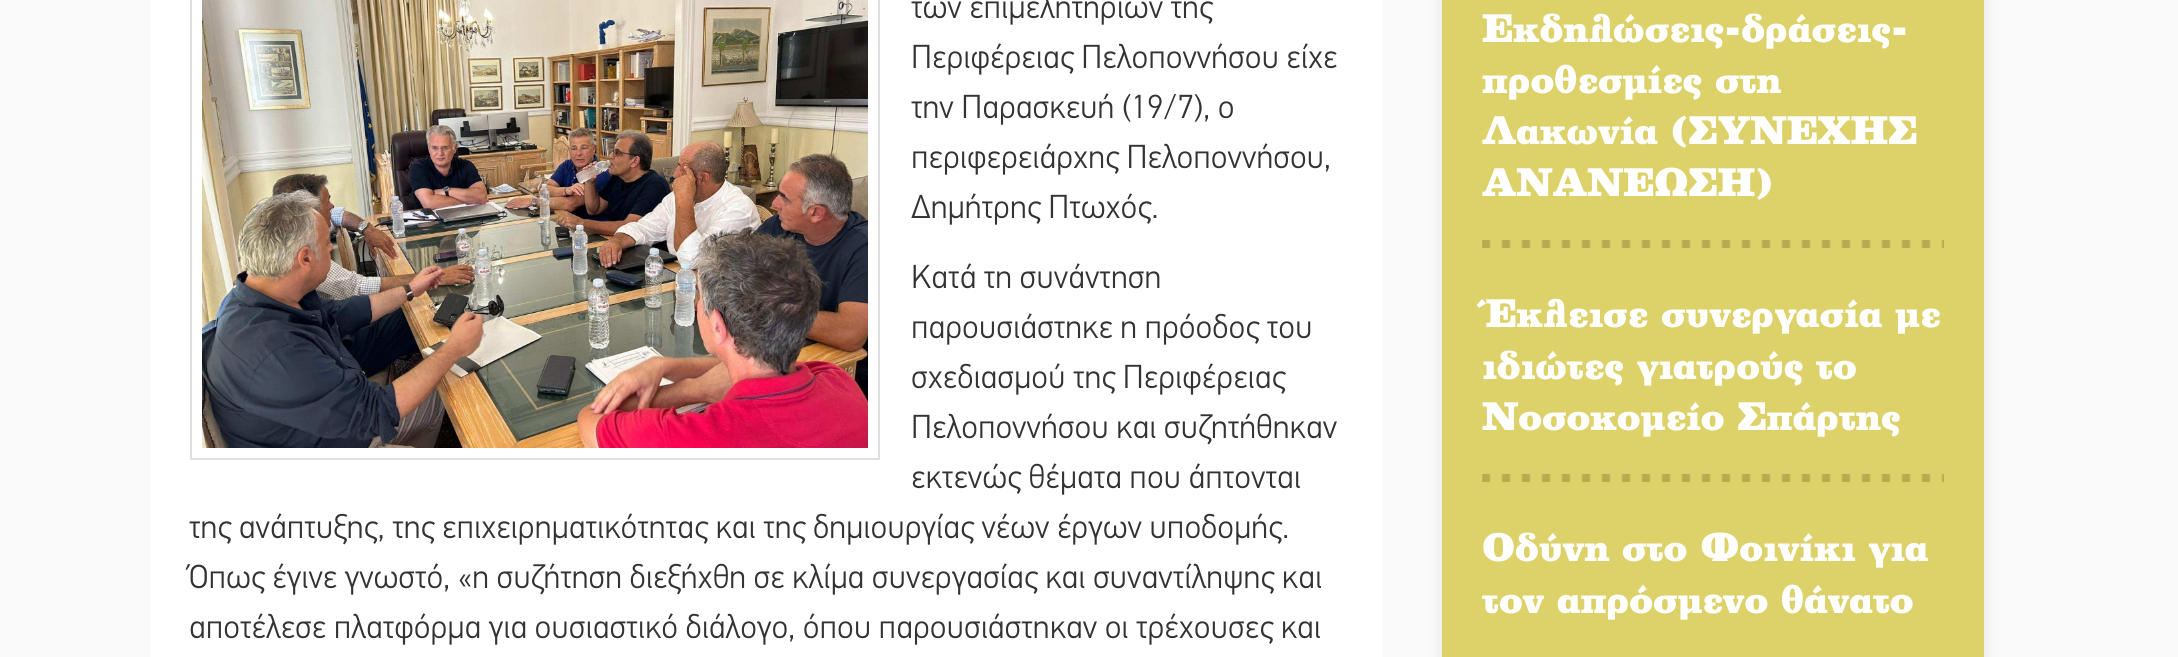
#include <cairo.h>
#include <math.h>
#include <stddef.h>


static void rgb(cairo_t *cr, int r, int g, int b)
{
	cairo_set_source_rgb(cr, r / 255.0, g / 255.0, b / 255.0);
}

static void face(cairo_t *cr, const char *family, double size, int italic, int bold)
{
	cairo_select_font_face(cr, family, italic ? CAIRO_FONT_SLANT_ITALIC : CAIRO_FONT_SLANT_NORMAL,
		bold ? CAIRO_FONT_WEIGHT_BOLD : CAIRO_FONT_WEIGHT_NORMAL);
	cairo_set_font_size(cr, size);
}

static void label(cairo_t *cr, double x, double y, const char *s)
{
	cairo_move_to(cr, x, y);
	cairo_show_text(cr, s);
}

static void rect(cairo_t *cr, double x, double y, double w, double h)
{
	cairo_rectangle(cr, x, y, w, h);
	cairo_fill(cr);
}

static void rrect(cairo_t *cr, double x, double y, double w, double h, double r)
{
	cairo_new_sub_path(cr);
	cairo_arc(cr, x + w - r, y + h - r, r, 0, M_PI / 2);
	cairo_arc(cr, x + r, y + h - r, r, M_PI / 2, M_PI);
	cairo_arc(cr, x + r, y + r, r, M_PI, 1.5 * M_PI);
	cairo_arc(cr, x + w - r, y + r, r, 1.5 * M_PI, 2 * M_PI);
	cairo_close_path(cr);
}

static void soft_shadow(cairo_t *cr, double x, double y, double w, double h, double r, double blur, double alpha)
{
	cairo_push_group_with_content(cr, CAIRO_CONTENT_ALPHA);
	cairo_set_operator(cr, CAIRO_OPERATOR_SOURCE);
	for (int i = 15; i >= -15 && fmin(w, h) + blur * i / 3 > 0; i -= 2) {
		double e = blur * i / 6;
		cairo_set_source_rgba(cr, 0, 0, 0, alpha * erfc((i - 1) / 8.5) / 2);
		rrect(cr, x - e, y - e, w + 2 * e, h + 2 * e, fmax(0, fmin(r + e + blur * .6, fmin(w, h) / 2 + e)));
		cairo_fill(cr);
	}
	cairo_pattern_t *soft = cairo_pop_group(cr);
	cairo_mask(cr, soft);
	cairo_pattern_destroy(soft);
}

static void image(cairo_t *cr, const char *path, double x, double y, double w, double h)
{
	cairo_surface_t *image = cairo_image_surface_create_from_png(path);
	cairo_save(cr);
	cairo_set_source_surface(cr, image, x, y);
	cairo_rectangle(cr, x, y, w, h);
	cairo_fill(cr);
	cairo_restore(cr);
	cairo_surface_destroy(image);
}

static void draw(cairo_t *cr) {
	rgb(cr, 250, 250, 250);
	cairo_paint(cr);
	rgb(cr, 255, 255, 255);
	rect(cr, 150, 0, 1232, 657);
	cairo_rectangle(cr, 191, -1, 688, 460);
	rgb(cr, 223, 223, 223);
	cairo_stroke(cr);
	image(cr, "image0.png", 202, 0, 666, 448);
	face(cr, "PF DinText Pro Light", 34, 0, 0);
	rgb(cr, 51, 51, 51);
	label(cr, 911, 18, "των επιμελητηρίων της");
	label(cr, 911, 68, "Περιφέρειας Πελοποννήσου είχε");
	label(cr, 911, 118, "την Παρασκευή (19/7), ο");
	label(cr, 911, 168, "περιφερειάρχης Πελοποννήσου,");
	label(cr, 911, 218, "Δημήτρης Πτωχός.");
	label(cr, 911, 288, "Κατά τη συνάντηση");
	label(cr, 911, 338, "παρουσιάστηκε η πρόοδος του");
	label(cr, 911, 388, "σχεδιασμού της Περιφέρειας");
	label(cr, 911, 438, "Πελοποννήσου και συζητήθηκαν");
	label(cr, 911, 488, "εκτενώς θέματα που άπτονται");
	label(cr, 189, 538, "της ανάπτυξης, της επιχειρηματικότητας και της δημιουργίας νέων έργων υποδομής.");
	label(cr, 189, 588, "Όπως έγινε γνωστό, «η συζήτηση διεξήχθη σε κλίμα συνεργασίας και συναντίληψης και");
	label(cr, 189, 638, "αποτέλεσε πλατφόρμα για ουσιαστικό διάλογο, όπου παρουσιάστηκαν οι τρέχουσες και");
	rgb(cr, 0, 0, 0);
	soft_shadow(cr, 1442, -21, 542, 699, 0, 7, 0.1);
	rgb(cr, 221, 209, 105);
	rect(cr, 1442, 0, 542, 657);
	image(cr, "image1.png", 1482, 240, 462, 8);
	face(cr, "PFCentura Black", 36, 0, 0);
	rgb(cr, 255, 255, 255);
	label(cr, 1482, 42, "Εκδηλώσεις-δράσεις-");
	label(cr, 1482, 93, "προθεσμίες στη");
	label(cr, 1482, 144, "Λακωνία (ΣΥΝΕΧΗΣ");
	label(cr, 1482, 196, "ΑΝΑΝΕΩΣΗ)");
	image(cr, "image1.png", 1482, 474, 462, 8);
	label(cr, 1482, 327, "Έκλεισε συνεργασία με");
	label(cr, 1482, 379, "ιδιώτες γιατρούς το");
	label(cr, 1482, 430, "Νοσοκομείο Σπάρτης");
	label(cr, 1482, 561, "Οδύνη στο Φοινίκι για");
	label(cr, 1482, 613, "τον απρόσμενο θάνατο");
}

int main(void) {
	cairo_surface_t *surface = cairo_image_surface_create(CAIRO_FORMAT_RGB24, 2178, 657);
	cairo_t *cr = cairo_create(surface);
	cairo_font_options_t *options = cairo_font_options_create();
	cairo_font_options_set_hint_metrics(options, CAIRO_HINT_METRICS_OFF);
	cairo_font_options_set_hint_style(options, CAIRO_HINT_STYLE_NONE);
	cairo_set_font_options(cr, options);
	cairo_set_miter_limit(cr, 4);
	draw(cr);
	cairo_surface_write_to_png(surface, "render.png");
	cairo_font_options_destroy(options);
	cairo_destroy(cr);
	cairo_surface_destroy(surface);
	return 0;
}
